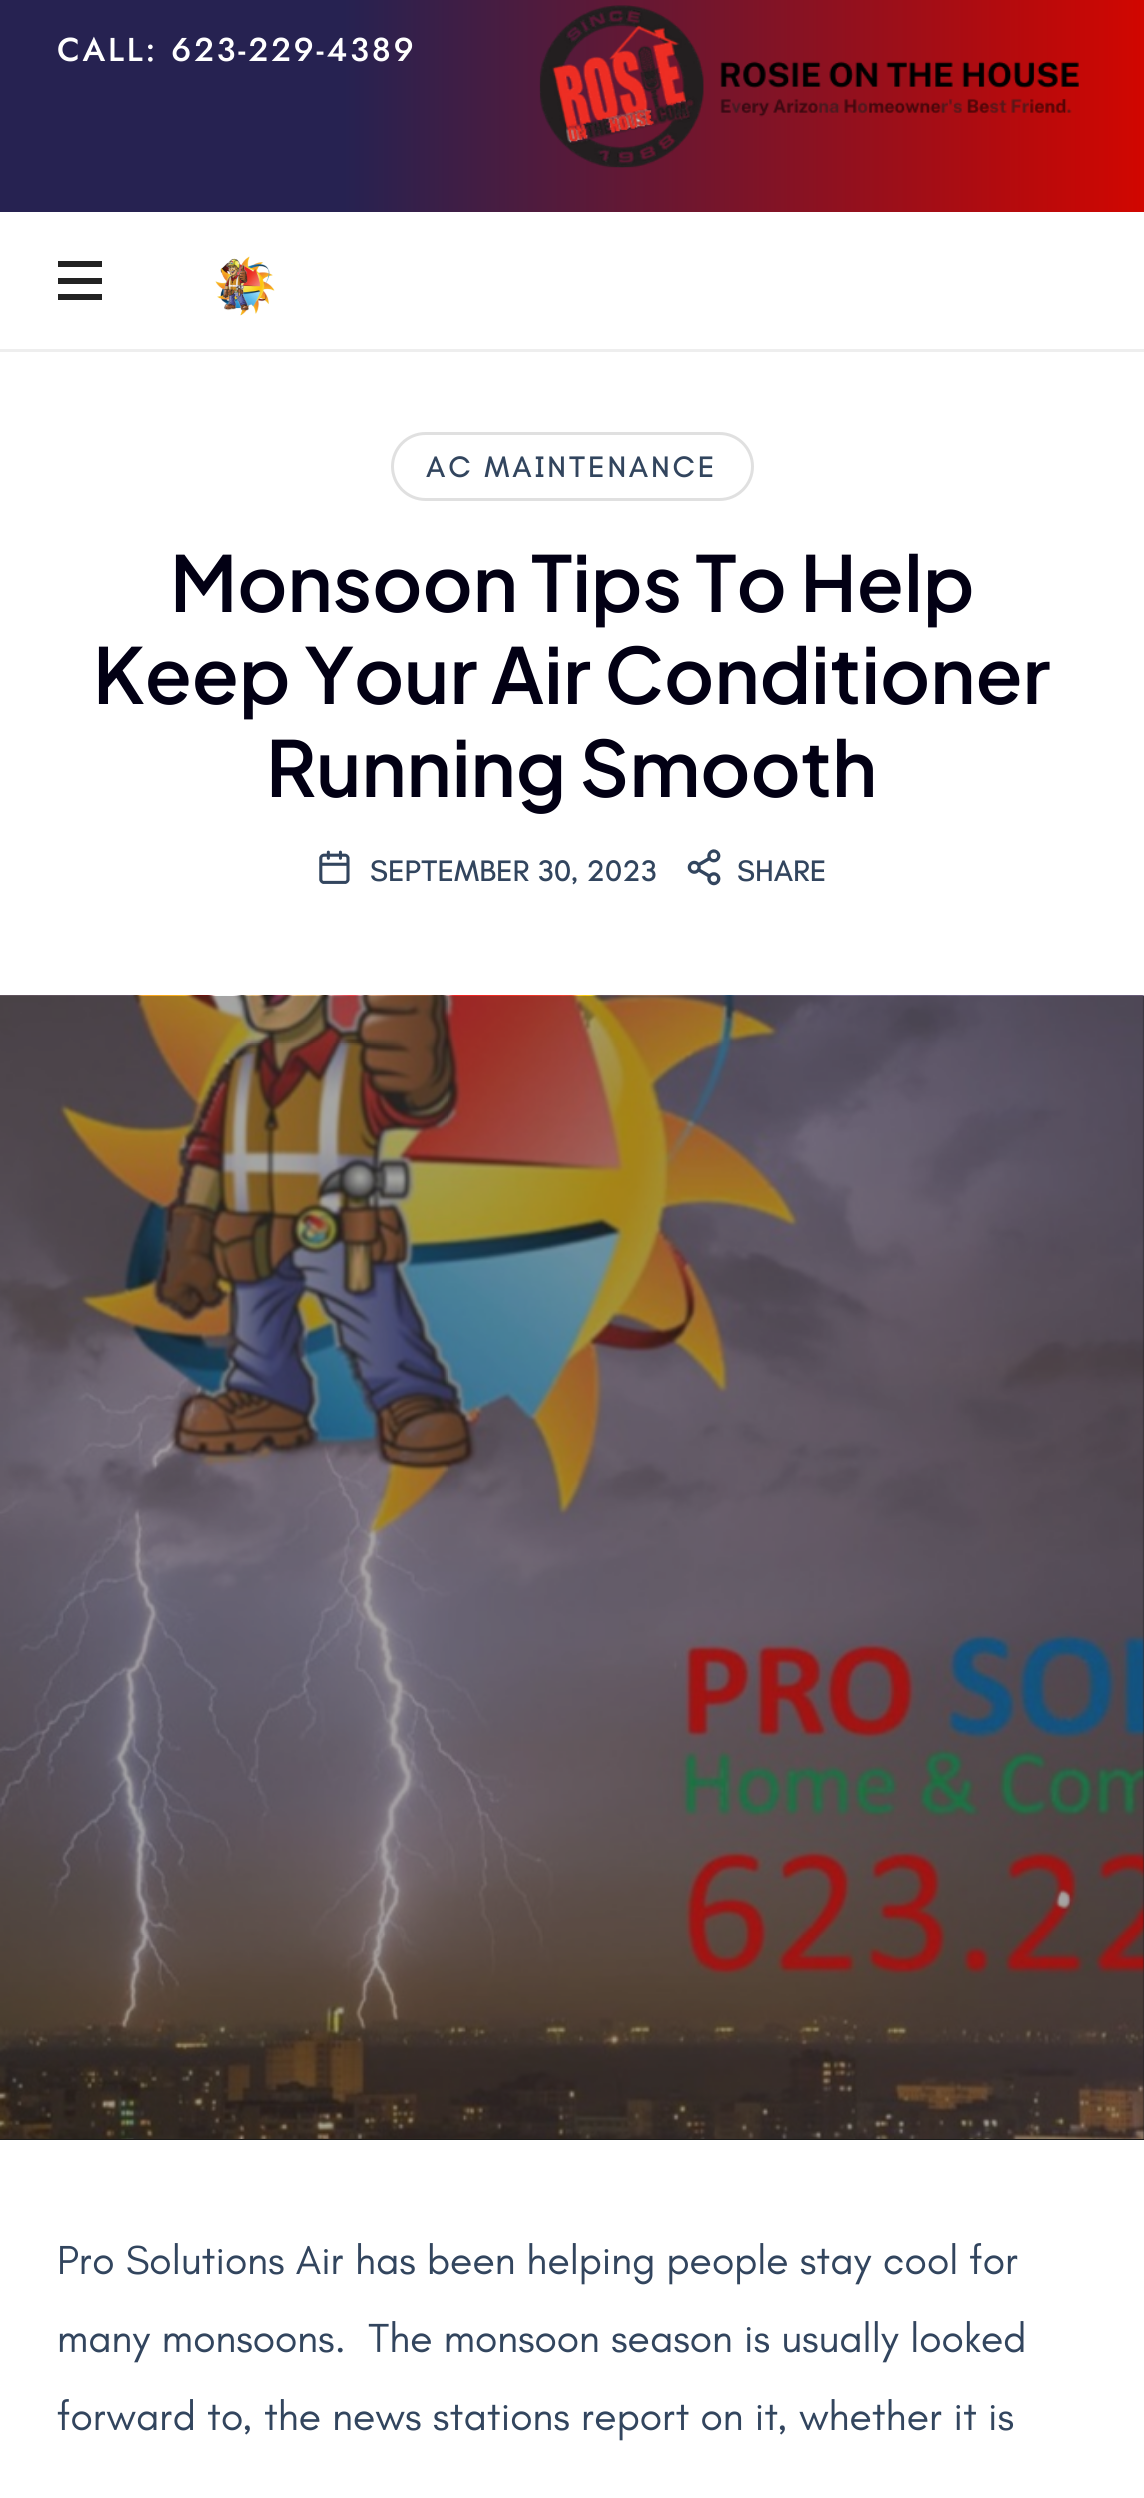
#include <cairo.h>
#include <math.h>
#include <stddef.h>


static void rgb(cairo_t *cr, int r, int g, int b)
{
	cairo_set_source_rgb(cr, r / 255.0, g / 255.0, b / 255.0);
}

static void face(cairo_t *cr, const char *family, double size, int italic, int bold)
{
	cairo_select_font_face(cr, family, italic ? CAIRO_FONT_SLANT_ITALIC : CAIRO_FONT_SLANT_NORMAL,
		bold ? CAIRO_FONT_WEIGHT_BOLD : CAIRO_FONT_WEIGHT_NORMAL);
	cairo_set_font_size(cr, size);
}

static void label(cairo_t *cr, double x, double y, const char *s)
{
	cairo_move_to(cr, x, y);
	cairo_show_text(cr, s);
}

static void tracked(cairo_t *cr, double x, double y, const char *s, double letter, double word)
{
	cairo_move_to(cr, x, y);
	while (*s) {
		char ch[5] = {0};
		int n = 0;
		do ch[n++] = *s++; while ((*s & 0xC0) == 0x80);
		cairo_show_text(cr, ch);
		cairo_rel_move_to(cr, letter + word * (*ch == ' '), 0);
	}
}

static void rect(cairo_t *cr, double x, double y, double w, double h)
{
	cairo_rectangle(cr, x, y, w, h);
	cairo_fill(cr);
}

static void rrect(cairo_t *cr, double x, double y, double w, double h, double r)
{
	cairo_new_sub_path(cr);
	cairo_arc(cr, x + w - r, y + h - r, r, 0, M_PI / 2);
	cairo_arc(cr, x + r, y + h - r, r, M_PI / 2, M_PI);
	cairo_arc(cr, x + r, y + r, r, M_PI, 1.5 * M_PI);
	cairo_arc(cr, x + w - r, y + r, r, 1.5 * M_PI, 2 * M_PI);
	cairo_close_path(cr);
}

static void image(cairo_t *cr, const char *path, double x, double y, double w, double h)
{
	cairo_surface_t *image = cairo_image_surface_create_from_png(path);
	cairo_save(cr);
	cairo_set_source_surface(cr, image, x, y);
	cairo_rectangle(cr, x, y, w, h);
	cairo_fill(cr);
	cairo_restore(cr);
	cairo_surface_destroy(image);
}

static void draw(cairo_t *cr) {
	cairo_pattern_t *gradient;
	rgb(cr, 255, 255, 255);
	cairo_paint(cr);
	gradient = cairo_pattern_create_linear(0, 106, 1144, 106);
	cairo_pattern_add_color_stop_rgba(gradient, 0.3, 0.149, 0.133, 0.318, 1);
	cairo_pattern_add_color_stop_rgba(gradient, 1, 0.82, 0.024, 0, 1);
	cairo_set_source(cr, gradient);
	cairo_pattern_destroy(gradient);
	rect(cr, 0, 0, 1144, 212);
	face(cr, "Jost Medium", 33, 0, 0);
	rgb(cr, 255, 255, 255);
	tracked(cr, 57, 61, "CALL: 623-229-4389", 2.75, 0);
	image(cr, "image0.png", 539, 5, 540, 163);
	rgb(cr, 34, 34, 34);
	rect(cr, 58, 278, 44, 6);
	rect(cr, 58, 261, 44, 6);
	rect(cr, 58, 294, 44, 6);
	image(cr, "image1.png", 215, 256, 60, 60);
	rgb(cr, 238, 238, 238);
	rect(cr, 0, 349, 1144, 3);
	rrect(cr, 392.5, 433.5, 360, 66, 33);
	rgb(cr, 224, 224, 224);
	cairo_set_line_width(cr, 3);
	cairo_stroke(cr);
	face(cr, "Teachers Medium", 30.25, 0, 0);
	rgb(cr, 50, 69, 94);
	tracked(cr, 426, 477, "AC MAINTENANCE", 2.75, 0);
	face(cr, "Plus Jakarta Sans SemiBold", 77, 0, 0);
	rgb(cr, 2, 0, 20);
	label(cr, 170, 612, "Monsoon Tips To Help");
	label(cr, 93, 704, "Keep Your Air Conditioner");
	label(cr, 266, 797, "Running Smooth");
	image(cr, "image2.png", 319, 850, 31, 34);
	face(cr, "Teachers Medium", 30.25, 0, 0);
	rgb(cr, 50, 69, 94);
	label(cr, 370, 881, "SEPTEMBER 30, 2023");
	image(cr, "image3.png", 687, 849, 34, 37);
	label(cr, 737, 881, "SHARE");
	rgb(cr, 28, 28, 27);
	rect(cr, 0, 996, 1144, 1144);
	image(cr, "image4.png", 0, 995, 1144, 1144);
	face(cr, "Teachers", 41.25, 0, 0);
	rgb(cr, 50, 69, 94);
	label(cr, 57, 2274, "Pro Solutions Air has been helping people stay cool for");
	label(cr, 57, 2352, "many monsoons.  The monsoon season is usually looked");
	label(cr, 57, 2430, "forward to, the news stations report on it, whether it is");
}

int main(void) {
	cairo_surface_t *surface = cairo_image_surface_create(CAIRO_FORMAT_RGB24, 1144, 2498);
	cairo_t *cr = cairo_create(surface);
	cairo_font_options_t *options = cairo_font_options_create();
	cairo_font_options_set_hint_metrics(options, CAIRO_HINT_METRICS_OFF);
	cairo_font_options_set_hint_style(options, CAIRO_HINT_STYLE_NONE);
	cairo_set_font_options(cr, options);
	cairo_set_miter_limit(cr, 4);
	draw(cr);
	cairo_surface_write_to_png(surface, "render.png");
	cairo_font_options_destroy(options);
	cairo_destroy(cr);
	cairo_surface_destroy(surface);
	return 0;
}
